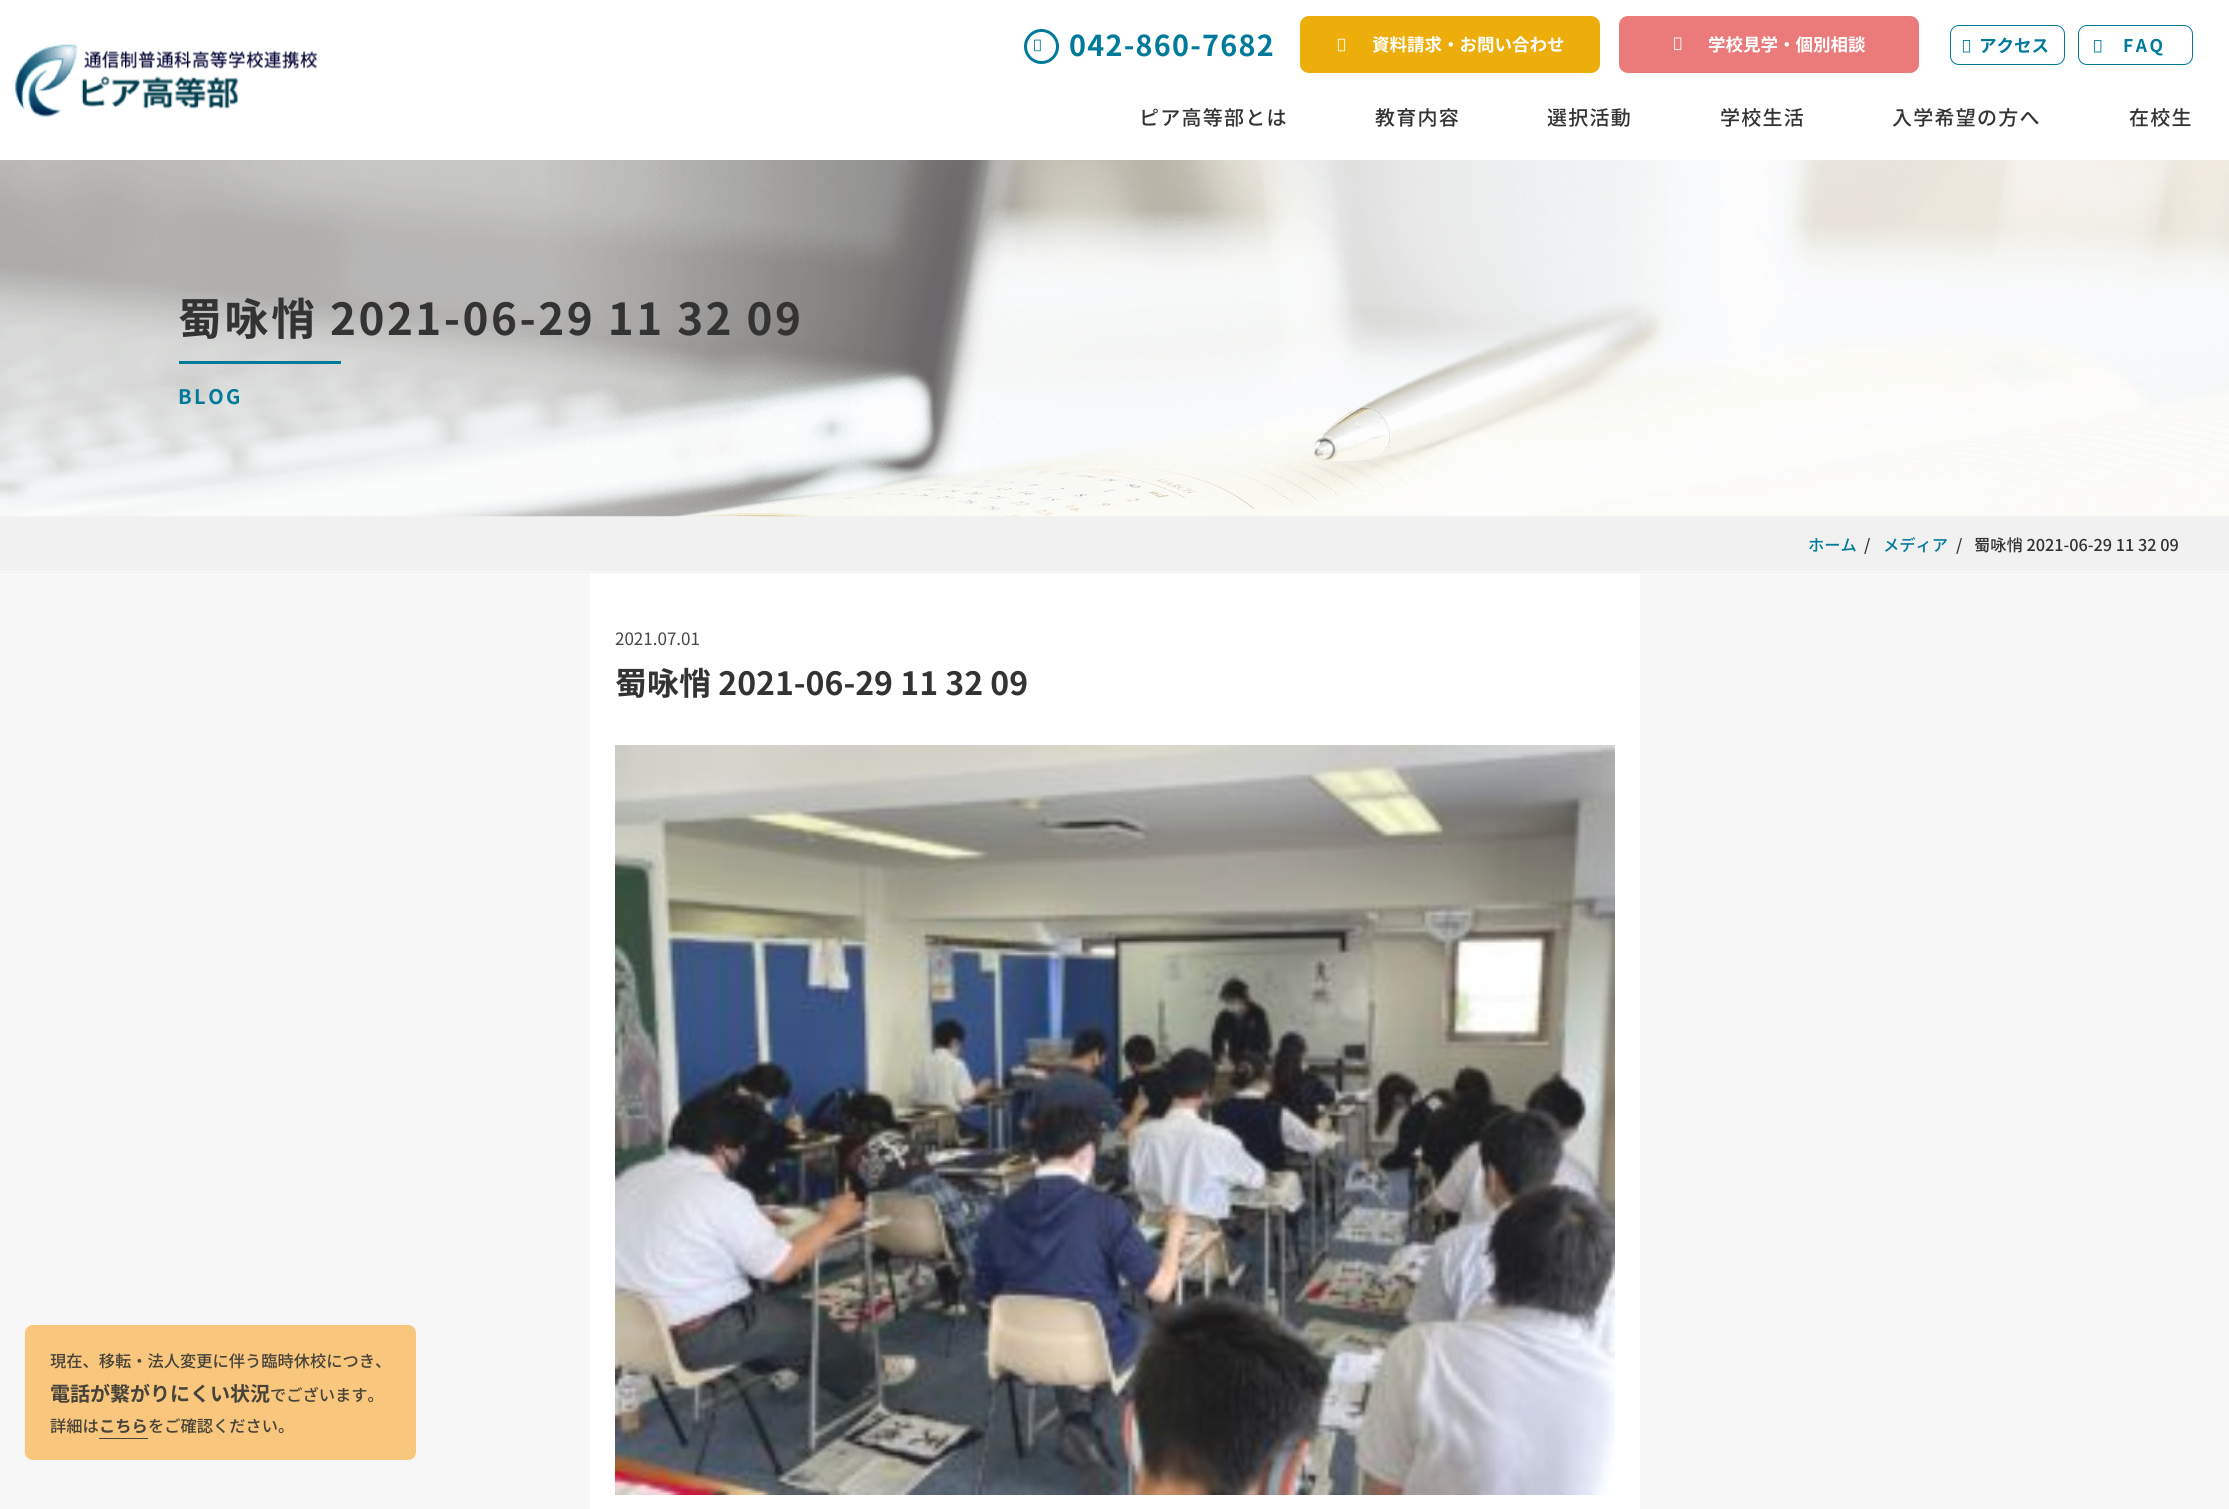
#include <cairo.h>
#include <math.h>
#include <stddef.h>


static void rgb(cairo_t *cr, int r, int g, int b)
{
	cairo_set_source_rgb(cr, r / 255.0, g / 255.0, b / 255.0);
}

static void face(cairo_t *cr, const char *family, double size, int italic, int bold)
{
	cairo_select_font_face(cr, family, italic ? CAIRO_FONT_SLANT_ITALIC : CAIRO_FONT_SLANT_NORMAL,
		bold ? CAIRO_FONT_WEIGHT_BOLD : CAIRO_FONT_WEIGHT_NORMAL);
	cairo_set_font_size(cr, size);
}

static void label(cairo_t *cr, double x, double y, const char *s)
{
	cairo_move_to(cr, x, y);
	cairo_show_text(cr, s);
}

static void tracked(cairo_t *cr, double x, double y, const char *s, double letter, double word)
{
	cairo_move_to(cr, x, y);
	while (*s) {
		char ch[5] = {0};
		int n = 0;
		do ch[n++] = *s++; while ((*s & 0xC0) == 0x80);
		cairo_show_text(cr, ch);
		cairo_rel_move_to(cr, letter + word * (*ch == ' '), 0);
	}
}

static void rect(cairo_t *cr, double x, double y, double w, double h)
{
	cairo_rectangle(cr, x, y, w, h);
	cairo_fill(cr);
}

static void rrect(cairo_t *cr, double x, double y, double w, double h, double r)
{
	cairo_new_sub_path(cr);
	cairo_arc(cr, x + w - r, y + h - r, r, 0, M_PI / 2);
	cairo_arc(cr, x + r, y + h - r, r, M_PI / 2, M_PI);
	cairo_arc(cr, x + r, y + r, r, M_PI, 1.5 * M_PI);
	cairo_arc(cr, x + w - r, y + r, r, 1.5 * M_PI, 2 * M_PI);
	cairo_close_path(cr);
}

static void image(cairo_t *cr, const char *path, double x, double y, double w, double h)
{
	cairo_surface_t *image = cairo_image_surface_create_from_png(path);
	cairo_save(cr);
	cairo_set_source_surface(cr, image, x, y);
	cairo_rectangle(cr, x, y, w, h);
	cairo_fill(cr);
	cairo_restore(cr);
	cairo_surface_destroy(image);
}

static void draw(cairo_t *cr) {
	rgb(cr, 255, 255, 255);
	cairo_paint(cr);
	image(cr, "image0.png", 15, 44, 303, 74);
	cairo_arc(cr, 1041.5, 46.5, 16, 0, 2 * M_PI);
	rgb(cr, 0, 122, 154);
	cairo_set_line_width(cr, 3);
	cairo_stroke(cr);
	image(cr, "image1.png", 1034, 39, 7, 13);
	face(cr, "Noto Sans JP", 28.75, 0, 1);
	tracked(cr, 1069, 56, "042-860-7682", 1.25, 0);
	rgb(cr, 237, 173, 11);
	rrect(cr, 1300, 16, 300, 57, 9);
	cairo_fill(cr);
	image(cr, "image2.png", 1337, 38, 9, 14);
	face(cr, "Noto Sans JP", 17.5, 0, 1);
	rgb(cr, 255, 255, 255);
	label(cr, 1372, 51, "資料請求・お問い合わせ");
	rgb(cr, 235, 122, 122);
	rrect(cr, 1619, 16, 300, 57, 9);
	cairo_fill(cr);
	image(cr, "image3.png", 1674, 37, 8, 13);
	rgb(cr, 255, 255, 255);
	label(cr, 1708, 51, "学校見学・個別相談");
	rrect(cr, 1950.5, 25.5, 114, 39, 8.5);
	rgb(cr, 0, 122, 154);
	cairo_set_line_width(cr, 1);
	cairo_stroke(cr);
	image(cr, "image4.png", 1962, 40, 9, 13);
	label(cr, 1979, 52, "アクセス");
	rrect(cr, 2078.5, 25.5, 114, 39, 8.5);
	cairo_stroke(cr);
	image(cr, "image5.png", 2094, 40, 8, 13);
	tracked(cr, 2123, 52, "FAQ", 2.5, 0);
	face(cr, "Noto Sans JP Medium", 20, 0, 0);
	rgb(cr, 51, 51, 51);
	tracked(cr, 1139, 125, "ピア高等部とは", 1.25, 0);
	tracked(cr, 1375, 125, "教育内容", 1.25, 0);
	tracked(cr, 1547, 125, "選択活動", 1.25, 0);
	tracked(cr, 1720, 125, "学校生活", 1.25, 0);
	tracked(cr, 1892, 125, "入学希望の方へ", 1.25, 0);
	tracked(cr, 2129, 125, "在校生", 1.25, 0);
	rgb(cr, 247, 247, 247);
	rect(cr, 0, 160, 2229, 1349);
	rgb(cr, 241, 241, 241);
	rect(cr, 0, 516, 2229, 57);
	image(cr, "image6.png", 0, 160, 2229, 357);
	face(cr, "Noto Sans JP", 44, 0, 1);
	rgb(cr, 51, 51, 51);
	tracked(cr, 178, 335, "蜀咏悄 2021-06-29 11 32 09", 2.5, 0);
	rgb(cr, 0, 122, 154);
	rect(cr, 179, 361, 162, 3);
	face(cr, "Noto Sans JP", 20, 0, 1);
	tracked(cr, 178, 404, "BLOG", 2.5, 0);
	rgb(cr, 250, 250, 250);
	rect(cr, 0, 571, 2229, 1);
	face(cr, "Noto Sans JP Medium", 16.25, 0, 0);
	rgb(cr, 0, 122, 154);
	label(cr, 1808, 551, "ホーム");
	rgb(cr, 51, 51, 51);
	label(cr, 1864, 551, "/");
	rgb(cr, 0, 122, 154);
	label(cr, 1883, 551, "メディア");
	rgb(cr, 51, 51, 51);
	label(cr, 1956, 551, "/");
	label(cr, 1974, 551, "蜀咏悄 2021-06-29 11 32 09");
	rgb(cr, 255, 255, 255);
	rect(cr, 590, 573, 1050, 936);
	face(cr, "Noto Sans JP", 17, 0, 0);
	rgb(cr, 71, 71, 71);
	label(cr, 615, 645, "2021.07.01");
	face(cr, "Noto Sans JP", 32, 0, 1);
	rgb(cr, 51, 51, 51);
	label(cr, 615, 695, "蜀咏悄 2021-06-29 11 32 09");
	image(cr, "image7.png", 615, 745, 1000, 750);
	rgb(cr, 248, 199, 125);
	rrect(cr, 25, 1325, 391, 135, 8);
	cairo_fill(cr);
	face(cr, "Noto Sans JP Medium", 16.25, 0, 0);
	rgb(cr, 71, 66, 58);
	label(cr, 50, 1367, "現在、移転・法人変更に伴う臨時休校につき、");
	face(cr, "Noto Sans JP", 20, 0, 1);
	label(cr, 50, 1401, "電話が繋がりにくい状況");
	face(cr, "Noto Sans JP Medium", 16.25, 0, 0);
	label(cr, 270, 1401, "でございます。");
	label(cr, 50, 1432, "詳細は");
	face(cr, "Noto Sans JP", 16.25, 0, 1);
	label(cr, 99, 1432, "こちら");
	rect(cr, 99, 1438, 49, 1);
	face(cr, "Noto Sans JP Medium", 16.25, 0, 0);
	label(cr, 148, 1432, "をご確認ください。");
}

int main(void) {
	cairo_surface_t *surface = cairo_image_surface_create(CAIRO_FORMAT_RGB24, 2229, 1509);
	cairo_t *cr = cairo_create(surface);
	cairo_font_options_t *options = cairo_font_options_create();
	cairo_font_options_set_hint_metrics(options, CAIRO_HINT_METRICS_OFF);
	cairo_font_options_set_hint_style(options, CAIRO_HINT_STYLE_NONE);
	cairo_set_font_options(cr, options);
	cairo_set_miter_limit(cr, 4);
	draw(cr);
	cairo_surface_write_to_png(surface, "render.png");
	cairo_font_options_destroy(options);
	cairo_destroy(cr);
	cairo_surface_destroy(surface);
	return 0;
}
